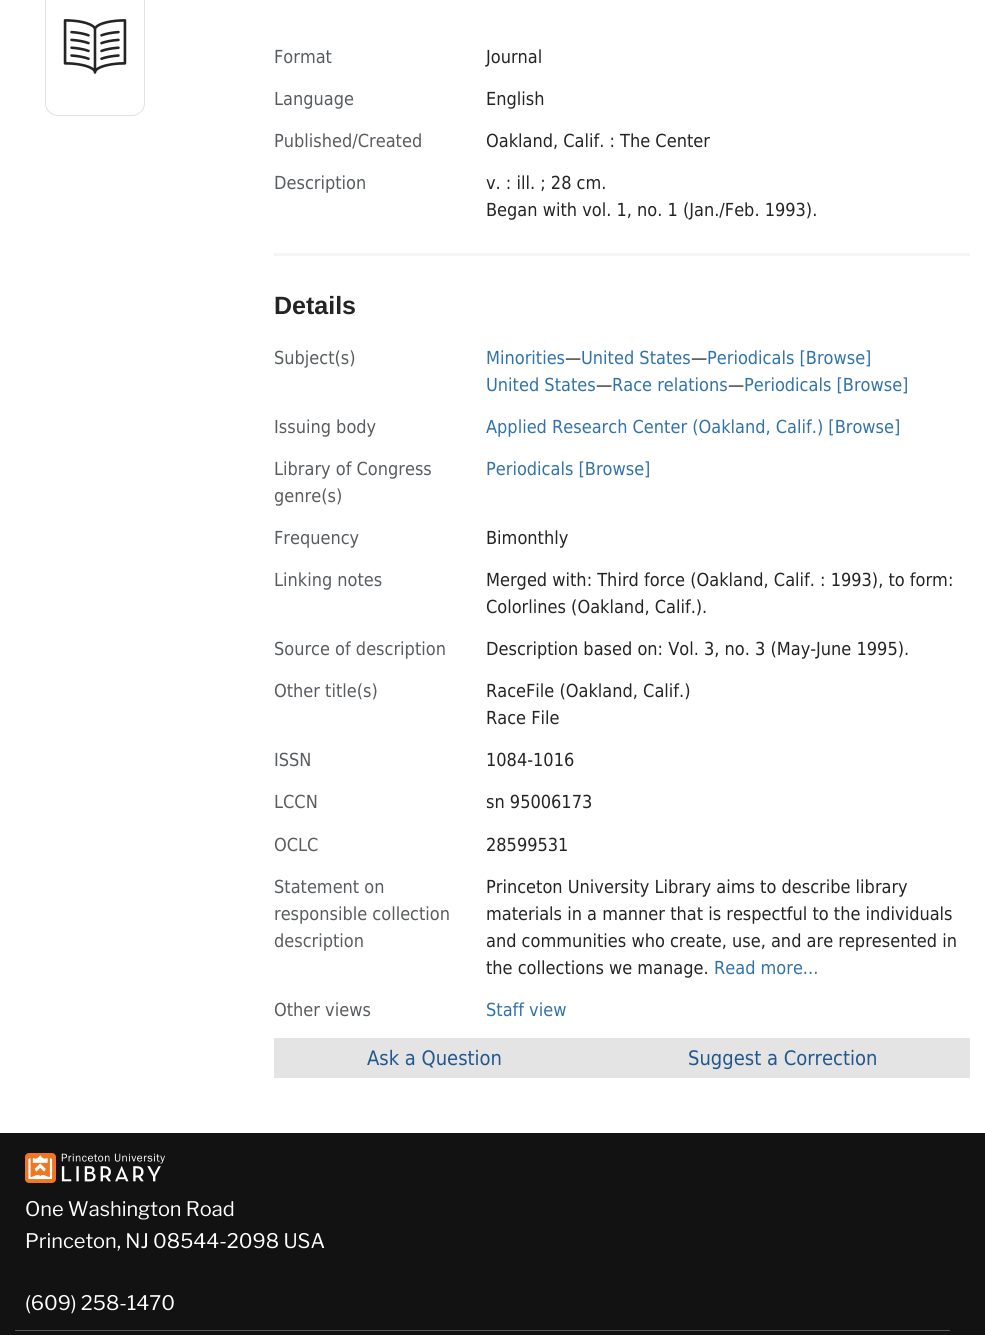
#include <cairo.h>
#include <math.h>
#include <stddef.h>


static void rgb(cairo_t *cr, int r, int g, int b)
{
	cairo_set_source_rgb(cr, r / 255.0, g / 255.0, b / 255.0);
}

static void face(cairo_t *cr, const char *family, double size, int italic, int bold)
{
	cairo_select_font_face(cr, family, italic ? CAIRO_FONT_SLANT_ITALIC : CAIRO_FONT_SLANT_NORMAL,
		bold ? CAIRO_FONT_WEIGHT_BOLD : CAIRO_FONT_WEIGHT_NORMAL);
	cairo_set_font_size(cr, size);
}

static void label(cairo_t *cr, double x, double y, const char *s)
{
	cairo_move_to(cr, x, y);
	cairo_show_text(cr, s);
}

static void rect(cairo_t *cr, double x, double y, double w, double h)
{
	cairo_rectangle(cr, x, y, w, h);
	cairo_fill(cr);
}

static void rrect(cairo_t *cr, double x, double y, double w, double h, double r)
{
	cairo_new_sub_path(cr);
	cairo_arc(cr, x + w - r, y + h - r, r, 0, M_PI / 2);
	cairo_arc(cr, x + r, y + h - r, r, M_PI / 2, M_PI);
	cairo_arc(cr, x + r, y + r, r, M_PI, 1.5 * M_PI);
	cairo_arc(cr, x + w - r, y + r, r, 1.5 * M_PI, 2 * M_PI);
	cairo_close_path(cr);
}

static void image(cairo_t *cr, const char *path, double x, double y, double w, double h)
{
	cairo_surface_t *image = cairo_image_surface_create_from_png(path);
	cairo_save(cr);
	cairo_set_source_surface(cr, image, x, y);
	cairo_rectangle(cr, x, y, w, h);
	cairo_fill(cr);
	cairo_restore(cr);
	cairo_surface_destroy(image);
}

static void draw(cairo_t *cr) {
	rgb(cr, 255, 255, 255);
	cairo_paint(cr);
	rrect(cr, 45.5, -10.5, 99, 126, 12.5);
	rgb(cr, 225, 225, 225);
	cairo_set_line_width(cr, 1);
	cairo_stroke(cr);
	image(cr, "image0.png", 63, 19, 64, 55);
	rgb(cr, 245, 245, 245);
	rect(cr, 274, 253, 696, 3);
	face(cr, "DejaVu Sans", 18, 0, 0);
	rgb(cr, 89, 92, 95);
	label(cr, 274, 63, "Format");
	rgb(cr, 36, 36, 36);
	label(cr, 486, 63, "Journal");
	rgb(cr, 89, 92, 95);
	label(cr, 274, 105, "Language");
	rgb(cr, 36, 36, 36);
	label(cr, 486, 105, "English");
	rgb(cr, 89, 92, 95);
	label(cr, 274, 147, "Published/Created");
	rgb(cr, 36, 36, 36);
	label(cr, 486, 147, "Oakland, Calif. : The Center");
	rgb(cr, 89, 92, 95);
	label(cr, 274, 189, "Description");
	rgb(cr, 36, 36, 36);
	label(cr, 486, 189, "v. : ill. ; 28 cm.");
	label(cr, 486, 216, "Began with vol. 1, no. 1 (Jan./Feb. 1993).");
	face(cr, "Liberation Sans", 25, 0, 1);
	label(cr, 274, 314, "Details");
	face(cr, "DejaVu Sans", 18, 0, 0);
	rgb(cr, 89, 92, 95);
	label(cr, 274, 364, "Subject(s)");
	rgb(cr, 48, 114, 171);
	label(cr, 486, 364, "Minorities");
	rgb(cr, 36, 36, 36);
	label(cr, 565, 364, "—");
	rgb(cr, 48, 114, 171);
	label(cr, 581, 364, "United States");
	rgb(cr, 36, 36, 36);
	label(cr, 691, 364, "—");
	rgb(cr, 48, 114, 171);
	label(cr, 707, 364, "Periodicals [Browse]");
	label(cr, 486, 391, "United States");
	rgb(cr, 36, 36, 36);
	label(cr, 596, 391, "—");
	rgb(cr, 48, 114, 171);
	label(cr, 612, 391, "Race relations");
	rgb(cr, 36, 36, 36);
	label(cr, 728, 391, "—");
	rgb(cr, 48, 114, 171);
	label(cr, 744, 391, "Periodicals [Browse]");
	rgb(cr, 89, 92, 95);
	label(cr, 274, 433, "Issuing body");
	rgb(cr, 48, 114, 171);
	label(cr, 486, 433, "Applied Research Center (Oakland, Calif.) [Browse]");
	rgb(cr, 89, 92, 95);
	label(cr, 274, 475, "Library of Congress");
	label(cr, 274, 502, "genre(s)");
	rgb(cr, 48, 114, 171);
	label(cr, 486, 475, "Periodicals [Browse]");
	rgb(cr, 89, 92, 95);
	label(cr, 274, 544, "Frequency");
	rgb(cr, 36, 36, 36);
	label(cr, 486, 544, "Bimonthly");
	rgb(cr, 89, 92, 95);
	label(cr, 274, 586, "Linking notes");
	rgb(cr, 36, 36, 36);
	label(cr, 486, 586, "Merged with: Third force (Oakland, Calif. : 1993), to form:");
	label(cr, 486, 613, "Colorlines (Oakland, Calif.).");
	rgb(cr, 89, 92, 95);
	label(cr, 274, 655, "Source of description");
	rgb(cr, 36, 36, 36);
	label(cr, 486, 655, "Description based on: Vol. 3, no. 3 (May-June 1995).");
	rgb(cr, 89, 92, 95);
	label(cr, 274, 697, "Other title(s)");
	rgb(cr, 36, 36, 36);
	label(cr, 486, 697, "RaceFile (Oakland, Calif.)");
	label(cr, 486, 724, "Race File");
	rgb(cr, 89, 92, 95);
	label(cr, 274, 766, "ISSN");
	rgb(cr, 36, 36, 36);
	label(cr, 486, 766, "1084-1016");
	rgb(cr, 89, 92, 95);
	label(cr, 274, 808, "LCCN");
	rgb(cr, 36, 36, 36);
	label(cr, 486, 808, "sn 95006173");
	rgb(cr, 89, 92, 95);
	label(cr, 274, 851, "OCLC");
	rgb(cr, 36, 36, 36);
	label(cr, 486, 851, "28599531");
	rgb(cr, 89, 92, 95);
	label(cr, 274, 893, "Statement on");
	label(cr, 274, 920, "responsible collection");
	label(cr, 274, 947, "description");
	rgb(cr, 36, 36, 36);
	label(cr, 486, 893, "Princeton University Library aims to describe library");
	label(cr, 486, 920, "materials in a manner that is respectful to the individuals");
	label(cr, 486, 947, "and communities who create, use, and are represented in");
	label(cr, 486, 974, "the collections we manage.");
	rgb(cr, 48, 114, 171);
	label(cr, 714, 974, "Read more...");
	rgb(cr, 89, 92, 95);
	label(cr, 274, 1016, "Other views");
	rgb(cr, 48, 114, 171);
	label(cr, 486, 1016, "Staff view");
	rgb(cr, 228, 228, 228);
	rect(cr, 274, 1038, 696, 40);
	face(cr, "DejaVu Sans", 20, 0, 0);
	rgb(cr, 35, 87, 139);
	label(cr, 367, 1065, "Ask a Question");
	label(cr, 688, 1065, "Suggest a Correction");
	rgb(cr, 18, 18, 18);
	rect(cr, 0, 1133, 985, 202);
	rgb(cr, 89, 89, 89);
	rect(cr, 15, 1330, 935, 1);
	image(cr, "image1.png", 25, 1153, 140, 30);
	face(cr, "Libre Franklin", 20, 0, 0);
	rgb(cr, 255, 255, 255);
	label(cr, 25, 1216, "One Washington Road");
	label(cr, 25, 1248, "Princeton, NJ 08544-2098 USA");
	label(cr, 25, 1310, "(609) 258-1470");
}

int main(void) {
	cairo_surface_t *surface = cairo_image_surface_create(CAIRO_FORMAT_RGB24, 985, 1335);
	cairo_t *cr = cairo_create(surface);
	cairo_font_options_t *options = cairo_font_options_create();
	cairo_font_options_set_hint_metrics(options, CAIRO_HINT_METRICS_OFF);
	cairo_font_options_set_hint_style(options, CAIRO_HINT_STYLE_NONE);
	cairo_set_font_options(cr, options);
	cairo_set_miter_limit(cr, 4);
	draw(cr);
	cairo_surface_write_to_png(surface, "render.png");
	cairo_font_options_destroy(options);
	cairo_destroy(cr);
	cairo_surface_destroy(surface);
	return 0;
}
